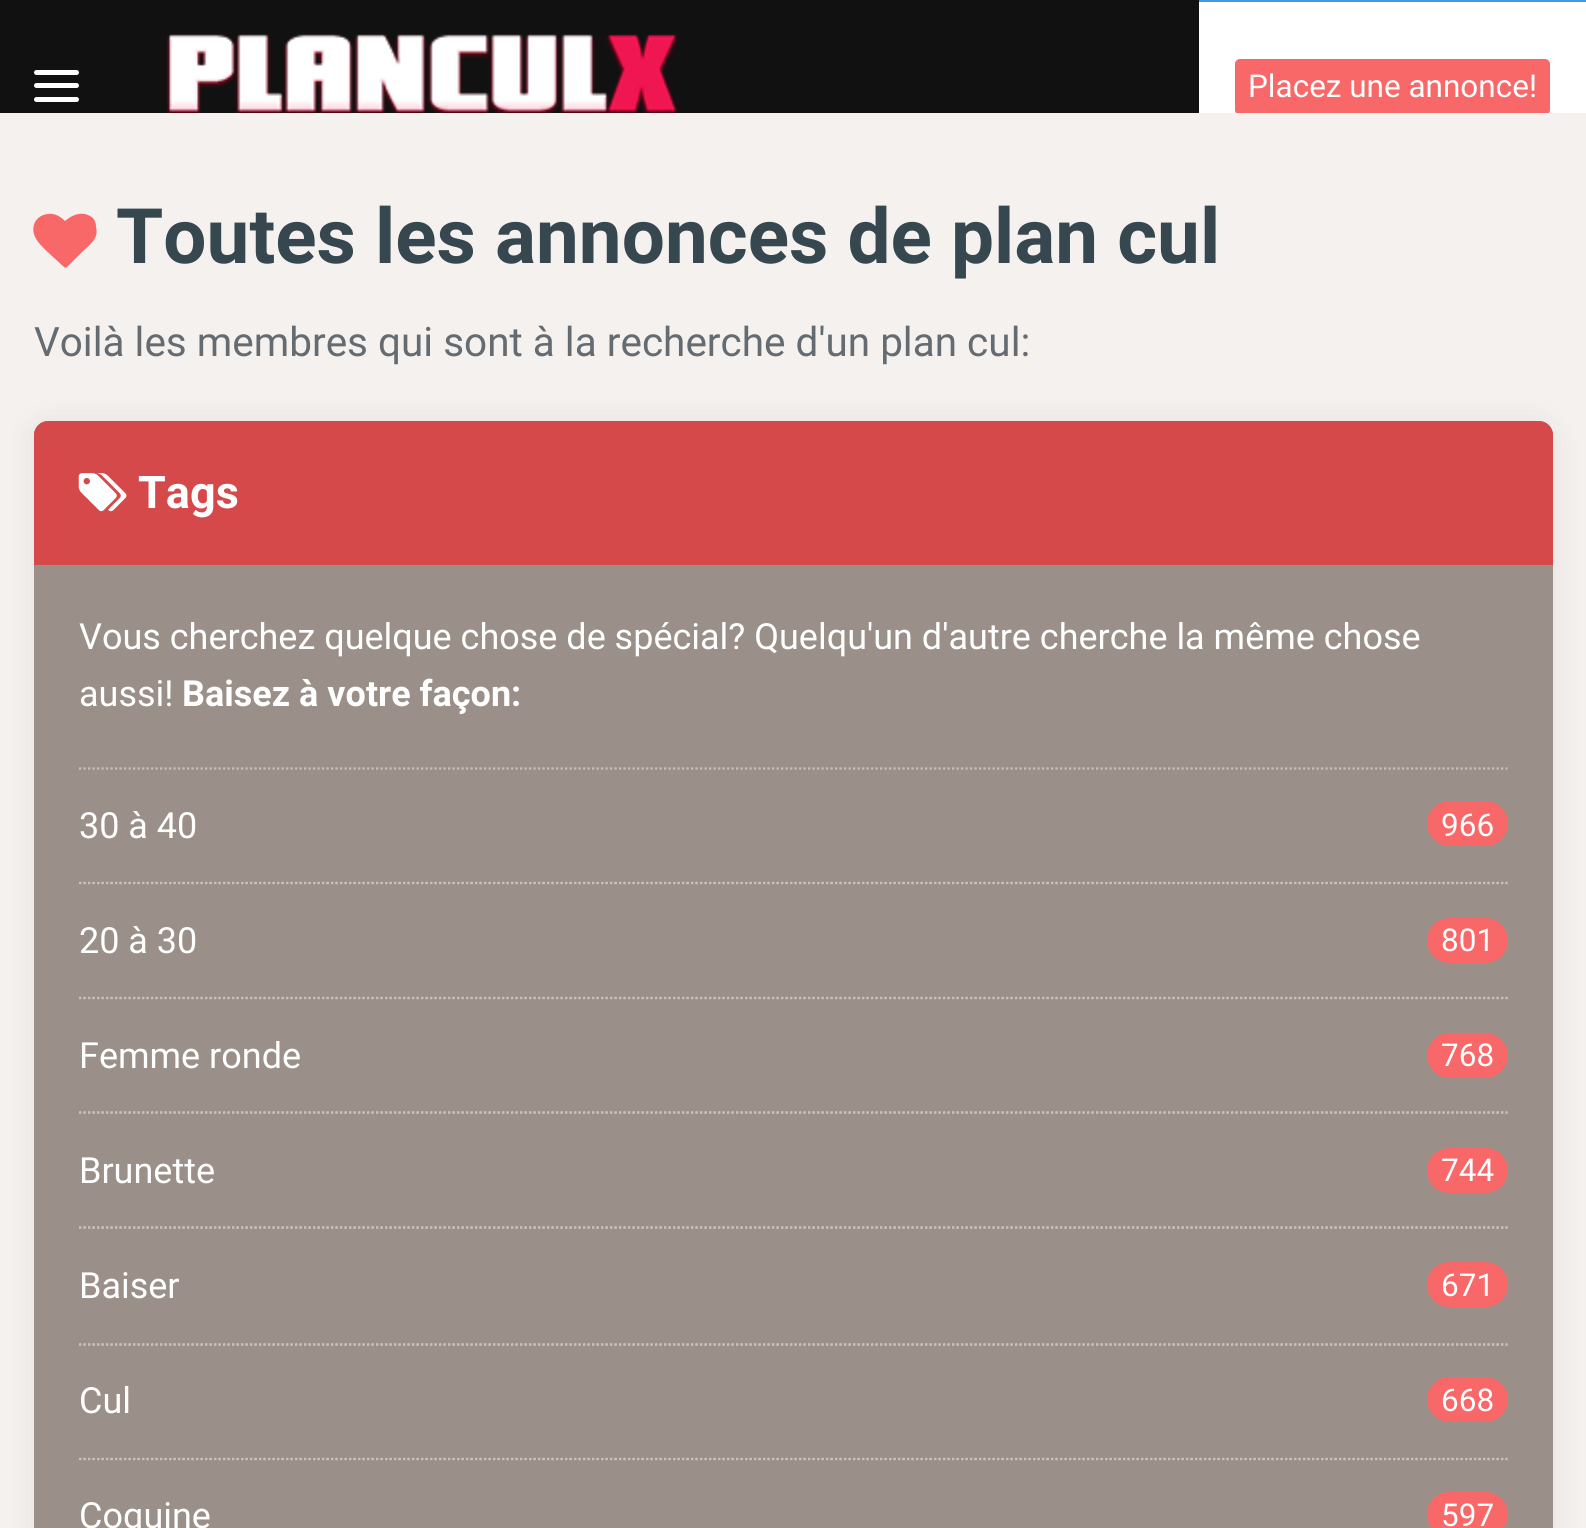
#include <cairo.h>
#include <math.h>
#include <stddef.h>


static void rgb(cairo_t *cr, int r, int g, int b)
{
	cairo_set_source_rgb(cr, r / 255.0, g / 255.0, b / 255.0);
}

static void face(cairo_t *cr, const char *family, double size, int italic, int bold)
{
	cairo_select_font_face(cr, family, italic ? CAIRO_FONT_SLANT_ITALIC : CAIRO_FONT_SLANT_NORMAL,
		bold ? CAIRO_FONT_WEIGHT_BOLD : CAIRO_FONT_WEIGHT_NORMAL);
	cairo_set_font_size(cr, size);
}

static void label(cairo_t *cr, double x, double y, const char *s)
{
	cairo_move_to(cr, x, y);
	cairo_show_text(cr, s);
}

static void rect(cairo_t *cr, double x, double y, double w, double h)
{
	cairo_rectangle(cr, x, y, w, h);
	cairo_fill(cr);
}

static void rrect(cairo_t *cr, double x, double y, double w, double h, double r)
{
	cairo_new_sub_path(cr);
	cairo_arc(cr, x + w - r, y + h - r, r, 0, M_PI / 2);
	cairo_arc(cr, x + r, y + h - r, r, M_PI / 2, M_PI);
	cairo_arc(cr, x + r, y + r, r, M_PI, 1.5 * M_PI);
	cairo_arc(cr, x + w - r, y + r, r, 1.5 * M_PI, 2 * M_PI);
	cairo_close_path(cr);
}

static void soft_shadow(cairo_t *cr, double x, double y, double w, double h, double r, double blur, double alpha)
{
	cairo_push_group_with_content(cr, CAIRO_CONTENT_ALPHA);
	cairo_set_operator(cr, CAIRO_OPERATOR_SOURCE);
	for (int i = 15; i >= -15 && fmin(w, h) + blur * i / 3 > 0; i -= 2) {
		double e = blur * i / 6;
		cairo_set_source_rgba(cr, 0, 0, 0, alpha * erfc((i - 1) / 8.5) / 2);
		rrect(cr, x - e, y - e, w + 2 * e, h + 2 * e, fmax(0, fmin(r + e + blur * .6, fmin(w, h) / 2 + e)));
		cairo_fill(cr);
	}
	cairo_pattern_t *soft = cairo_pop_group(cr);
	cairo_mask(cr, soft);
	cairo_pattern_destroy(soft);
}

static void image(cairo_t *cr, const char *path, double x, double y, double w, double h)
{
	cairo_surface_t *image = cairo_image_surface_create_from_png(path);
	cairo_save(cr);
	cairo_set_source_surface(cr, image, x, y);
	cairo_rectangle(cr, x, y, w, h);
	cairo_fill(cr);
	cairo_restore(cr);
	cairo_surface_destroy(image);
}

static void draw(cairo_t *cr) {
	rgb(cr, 17, 17, 17);
	cairo_paint(cr);
	rgb(cr, 255, 255, 255);
	rrect(cr, 34, 70, 45, 5, 2.5);
	cairo_fill(cr);
	rrect(cr, 34, 83, 45, 5, 2.5);
	cairo_fill(cr);
	rrect(cr, 34, 97, 45, 5, 2.5);
	cairo_fill(cr);
	image(cr, "image0.png", 166, 34, 513, 79);
	rect(cr, 1199, 2, 387, 111);
	rgb(cr, 67, 151, 230);
	rect(cr, 1199, 0, 387, 2);
	rgb(cr, 249, 104, 104);
	rrect(cr, 1236, 60, 313, 54, 4);
	cairo_fill_preserve(cr);
	cairo_stroke(cr);
	face(cr, "Roboto", 31.5, 0, 0);
	rgb(cr, 255, 255, 255);
	label(cr, 1248, 97, "Placez une annonce!");
	rgb(cr, 245, 241, 238);
	rect(cr, 0, 113, 1586, 1415);
	rgb(cr, 249, 104, 104);
	cairo_new_path(cr);
	cairo_move_to(cr, 67, 267);
	cairo_curve_to(cr, 66, 268, 65, 268, 64, 267);
	cairo_line_to(cr, 53, 257);
	cairo_curve_to(cr, 44, 248, 28, 237, 35, 222);
	cairo_curve_to(cr, 38, 217, 43, 214, 49, 214);
	cairo_curve_to(cr, 55, 213, 61, 217, 65, 221);
	cairo_curve_to(cr, 72, 215, 81, 211, 90, 216);
	cairo_curve_to(cr, 94, 218, 96, 222, 96, 227);
	cairo_curve_to(cr, 97, 231, 97, 234, 95, 238);
	cairo_curve_to(cr, 92, 244, 86, 248, 81, 253);
	cairo_close_path(cr);
	cairo_fill(cr);
	face(cr, "Roboto", 76.5, 0, 1);
	rgb(cr, 55, 71, 79);
	label(cr, 116, 263, "Toutes les annonces de plan cul");
	face(cr, "Roboto", 40.5, 0, 0);
	rgb(cr, 100, 108, 114);
	label(cr, 34, 356, "Voilà les membres qui sont à la recherche d'un plan cul:");
	rgb(cr, 0, 0, 0);
	soft_shadow(cr, 34, 423, 1519, 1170, 14, 17, 0.07);
	rgb(cr, 154, 144, 137);
	rrect(cr, 34, 421, 1519, 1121, 14);
	cairo_fill(cr);
	rgb(cr, 214, 73, 75);
	cairo_new_path(cr);
	cairo_move_to(cr, 48, 421);
	cairo_line_to(cr, 1539, 421);
	cairo_curve_to(cr, 1546.5, 421, 1553, 427.5, 1553, 435);
	cairo_line_to(cr, 1553, 565);
	cairo_line_to(cr, 34, 565);
	cairo_line_to(cr, 34, 435);
	cairo_curve_to(cr, 34, 427.5, 40.5, 421, 48, 421);
	cairo_close_path(cr);
	cairo_fill(cr);
	image(cr, "image1.png", 78, 473, 49, 39);
	face(cr, "Roboto", 45, 0, 1);
	rgb(cr, 255, 255, 255);
	label(cr, 138, 508, "Tags");
	face(cr, "Roboto", 36, 0, 0);
	label(cr, 79, 649, "Vous cherchez quelque chose de spécial? Quelqu'un d'autre cherche la même chose");
	label(cr, 79, 706, "aussi!");
	face(cr, "Roboto", 36, 0, 1);
	label(cr, 182, 706, "Baisez à votre façon:");
	cairo_new_path(cr);
	cairo_move_to(cr, 79, 768.5);
	cairo_line_to(cr, 1507.5, 768.5);
	rgb(cr, 204, 191, 183);
	cairo_set_line_width(cr, 2.2);
	cairo_set_dash(cr, (double[]){2.25, 2.25}, 2, 0);
	cairo_stroke(cr);
	cairo_new_path(cr);
	cairo_move_to(cr, 79, 883);
	cairo_line_to(cr, 1507.5, 883);
	cairo_stroke(cr);
	face(cr, "Roboto", 36, 0, 0);
	rgb(cr, 255, 255, 255);
	label(cr, 79, 838, "30 à 40");
	rgb(cr, 249, 104, 104);
	rrect(cr, 1427, 801, 81, 45, 22.5);
	cairo_fill(cr);
	face(cr, "Roboto", 31.5, 0, 0);
	rgb(cr, 255, 255, 255);
	label(cr, 1441, 836, "966");
	cairo_new_path(cr);
	cairo_move_to(cr, 79, 883);
	cairo_line_to(cr, 1507.5, 883);
	rgb(cr, 204, 191, 183);
	cairo_stroke(cr);
	cairo_new_path(cr);
	cairo_move_to(cr, 79, 998);
	cairo_line_to(cr, 1507.5, 998);
	cairo_stroke(cr);
	face(cr, "Roboto", 36, 0, 0);
	rgb(cr, 255, 255, 255);
	label(cr, 79, 953, "20 à 30");
	rgb(cr, 249, 104, 104);
	rrect(cr, 1427, 918, 81, 45, 22.5);
	cairo_fill(cr);
	face(cr, "Roboto", 31.5, 0, 0);
	rgb(cr, 255, 255, 255);
	label(cr, 1441, 951, "801");
	cairo_new_path(cr);
	cairo_move_to(cr, 79, 998);
	cairo_line_to(cr, 1507.5, 998);
	rgb(cr, 204, 191, 183);
	cairo_stroke(cr);
	cairo_new_path(cr);
	cairo_move_to(cr, 79, 1112.5);
	cairo_line_to(cr, 1507.5, 1112.5);
	cairo_stroke(cr);
	face(cr, "Roboto", 36, 0, 0);
	rgb(cr, 255, 255, 255);
	label(cr, 79, 1068, "Femme ronde");
	rgb(cr, 249, 104, 104);
	rrect(cr, 1427, 1033, 81, 45, 22.5);
	cairo_fill(cr);
	face(cr, "Roboto", 31.5, 0, 0);
	rgb(cr, 255, 255, 255);
	label(cr, 1441, 1066, "768");
	cairo_new_path(cr);
	cairo_move_to(cr, 79, 1112.5);
	cairo_line_to(cr, 1507.5, 1112.5);
	rgb(cr, 204, 191, 183);
	cairo_stroke(cr);
	cairo_new_path(cr);
	cairo_move_to(cr, 79, 1227.5);
	cairo_line_to(cr, 1507.5, 1227.5);
	cairo_stroke(cr);
	face(cr, "Roboto", 36, 0, 0);
	rgb(cr, 255, 255, 255);
	label(cr, 79, 1183, "Brunette");
	rgb(cr, 249, 104, 104);
	rrect(cr, 1427, 1148, 81, 45, 22.5);
	cairo_fill(cr);
	face(cr, "Roboto", 31.5, 0, 0);
	rgb(cr, 255, 255, 255);
	label(cr, 1441, 1181, "744");
	cairo_new_path(cr);
	cairo_move_to(cr, 79, 1227.5);
	cairo_line_to(cr, 1507.5, 1227.5);
	rgb(cr, 204, 191, 183);
	cairo_stroke(cr);
	cairo_new_path(cr);
	cairo_move_to(cr, 79, 1344.5);
	cairo_line_to(cr, 1507.5, 1344.5);
	cairo_stroke(cr);
	face(cr, "Roboto", 36, 0, 0);
	rgb(cr, 255, 255, 255);
	label(cr, 79, 1298, "Baiser");
	rgb(cr, 249, 104, 104);
	rrect(cr, 1427, 1262, 81, 45, 22.5);
	cairo_fill(cr);
	face(cr, "Roboto", 31.5, 0, 0);
	rgb(cr, 255, 255, 255);
	label(cr, 1441, 1296, "671");
	cairo_new_path(cr);
	cairo_move_to(cr, 79, 1344.5);
	cairo_line_to(cr, 1507.5, 1344.5);
	rgb(cr, 204, 191, 183);
	cairo_stroke(cr);
	cairo_new_path(cr);
	cairo_move_to(cr, 79, 1459);
	cairo_line_to(cr, 1507.5, 1459);
	cairo_stroke(cr);
	face(cr, "Roboto", 36, 0, 0);
	rgb(cr, 255, 255, 255);
	label(cr, 79, 1413, "Cul");
	rgb(cr, 249, 104, 104);
	rrect(cr, 1427, 1377, 81, 45, 22.5);
	cairo_fill(cr);
	face(cr, "Roboto", 31.5, 0, 0);
	rgb(cr, 255, 255, 255);
	label(cr, 1441, 1411, "668");
	cairo_new_path(cr);
	cairo_move_to(cr, 79, 1459);
	cairo_line_to(cr, 1507.5, 1459);
	rgb(cr, 204, 191, 183);
	cairo_stroke(cr);
	face(cr, "Roboto", 36, 0, 0);
	rgb(cr, 255, 255, 255);
	label(cr, 79, 1528, "Coquine");
	rgb(cr, 249, 104, 104);
	rrect(cr, 1427, 1492, 81, 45, 22.5);
	cairo_fill(cr);
	face(cr, "Roboto", 31.5, 0, 0);
	rgb(cr, 255, 255, 255);
	label(cr, 1441, 1526, "597");
}

int main(void) {
	cairo_surface_t *surface = cairo_image_surface_create(CAIRO_FORMAT_RGB24, 1586, 1528);
	cairo_t *cr = cairo_create(surface);
	cairo_font_options_t *options = cairo_font_options_create();
	cairo_font_options_set_hint_metrics(options, CAIRO_HINT_METRICS_OFF);
	cairo_font_options_set_hint_style(options, CAIRO_HINT_STYLE_NONE);
	cairo_set_font_options(cr, options);
	cairo_set_miter_limit(cr, 4);
	draw(cr);
	cairo_surface_write_to_png(surface, "render.png");
	cairo_font_options_destroy(options);
	cairo_destroy(cr);
	cairo_surface_destroy(surface);
	return 0;
}
